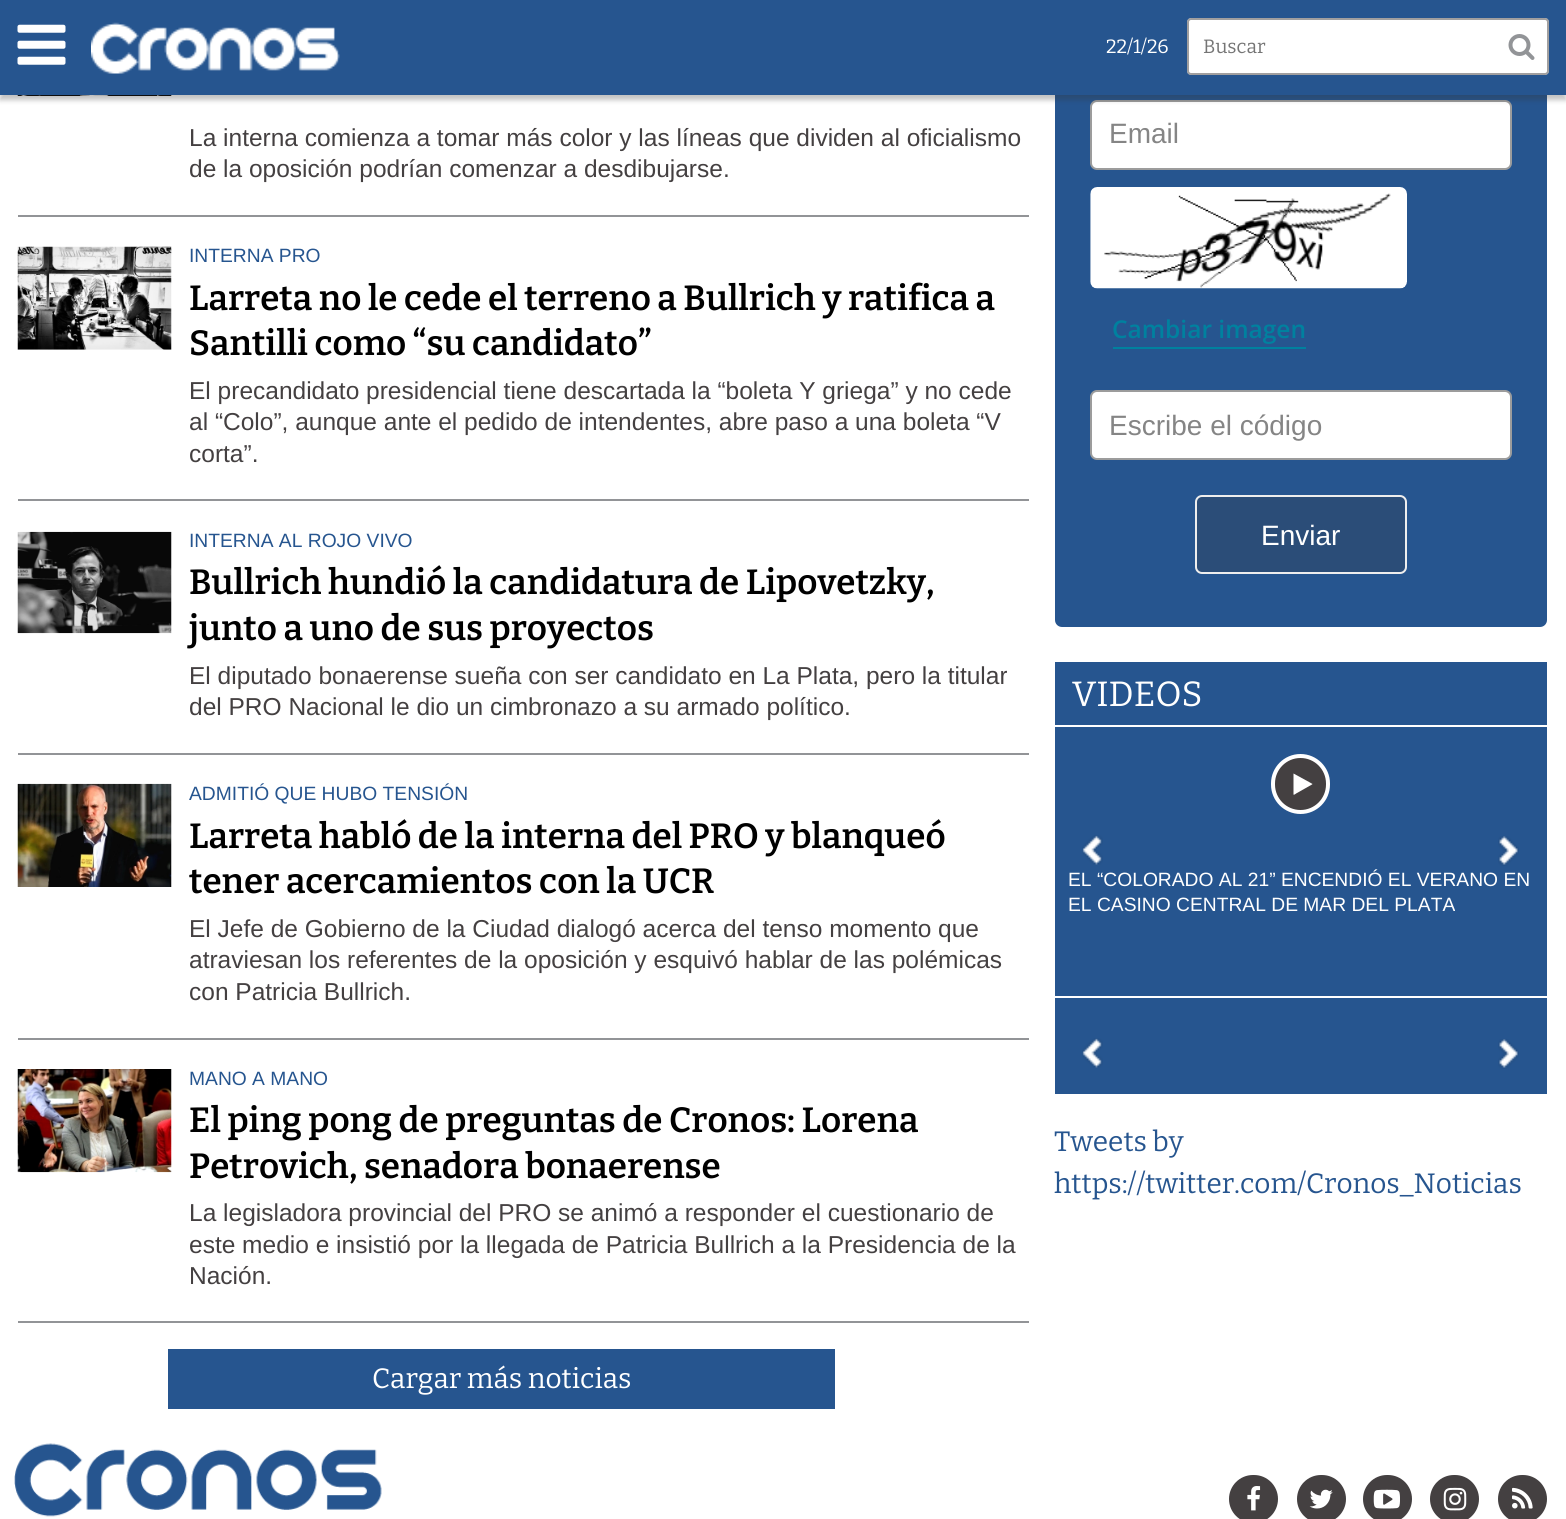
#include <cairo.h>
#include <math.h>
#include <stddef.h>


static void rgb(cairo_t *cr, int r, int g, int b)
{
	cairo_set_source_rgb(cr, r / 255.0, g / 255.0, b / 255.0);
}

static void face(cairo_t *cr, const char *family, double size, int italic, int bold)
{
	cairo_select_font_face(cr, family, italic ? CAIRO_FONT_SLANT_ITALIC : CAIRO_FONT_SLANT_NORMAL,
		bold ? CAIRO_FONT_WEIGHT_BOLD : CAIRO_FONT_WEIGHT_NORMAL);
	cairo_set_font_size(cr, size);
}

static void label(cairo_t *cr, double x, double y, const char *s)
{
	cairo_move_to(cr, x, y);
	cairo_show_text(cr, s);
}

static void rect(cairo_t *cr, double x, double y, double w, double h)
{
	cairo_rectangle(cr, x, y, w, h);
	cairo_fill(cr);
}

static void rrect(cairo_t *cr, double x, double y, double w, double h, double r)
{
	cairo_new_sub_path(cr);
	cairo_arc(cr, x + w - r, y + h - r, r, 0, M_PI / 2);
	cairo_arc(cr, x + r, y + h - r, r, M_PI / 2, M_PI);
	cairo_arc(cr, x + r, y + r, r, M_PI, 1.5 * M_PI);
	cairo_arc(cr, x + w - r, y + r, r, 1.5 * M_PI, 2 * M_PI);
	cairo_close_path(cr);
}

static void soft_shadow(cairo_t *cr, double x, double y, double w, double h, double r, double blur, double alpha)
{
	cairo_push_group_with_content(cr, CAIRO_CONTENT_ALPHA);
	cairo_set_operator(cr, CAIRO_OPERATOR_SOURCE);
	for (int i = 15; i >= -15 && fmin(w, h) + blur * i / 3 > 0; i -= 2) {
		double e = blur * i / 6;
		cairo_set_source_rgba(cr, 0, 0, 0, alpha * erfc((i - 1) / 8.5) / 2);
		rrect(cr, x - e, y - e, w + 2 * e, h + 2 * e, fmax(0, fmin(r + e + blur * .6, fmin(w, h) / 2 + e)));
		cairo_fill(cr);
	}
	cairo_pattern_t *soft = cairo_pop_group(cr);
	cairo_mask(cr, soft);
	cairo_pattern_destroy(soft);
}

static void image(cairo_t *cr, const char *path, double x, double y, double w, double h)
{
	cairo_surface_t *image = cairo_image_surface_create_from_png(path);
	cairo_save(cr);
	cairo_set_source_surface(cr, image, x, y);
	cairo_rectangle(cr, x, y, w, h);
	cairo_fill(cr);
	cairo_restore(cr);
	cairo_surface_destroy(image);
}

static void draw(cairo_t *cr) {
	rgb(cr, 255, 255, 255);
	cairo_paint(cr);
	image(cr, "image3.png", 17, 95, 155, 1);
	rgb(cr, 38, 85, 143);
	rrect(cr, 1055, -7, 492, 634, 7);
	cairo_fill(cr);
	rgb(cr, 255, 255, 255);
	rrect(cr, 1091, 101, 420, 68, 6);
	cairo_fill_preserve(cr);
	rgb(cr, 156, 156, 156);
	cairo_stroke(cr);
	rgb(cr, 50, 50, 50);
	soft_shadow(cr, 0, 5, 1566, 95, 0, 2.5, 0.3);
	rgb(cr, 38, 85, 143);
	rect(cr, 0, 0, 1566, 95);
	image(cr, "image0.png", 17, 24, 49, 41);
	image(cr, "image1.png", 91, 22, 249, 52);
	face(cr, "Bitter", 19.25, 0, 0);
	rgb(cr, 255, 255, 255);
	label(cr, 1106, 53, "22/1/26");
	rrect(cr, 1187, 18, 362, 57, 4);
	cairo_fill(cr);
	rrect(cr, 1188, 19, 360, 55, 3);
	cairo_set_source_rgba(cr, 0.267, 0.251, 0.255, 0.5);
	cairo_stroke(cr);
	rgb(cr, 117, 117, 117);
	label(cr, 1203, 53, "Buscar");
	image(cr, "image2.png", 1508, 34, 27, 26);
	rgb(cr, 146, 148, 151);
	rect(cr, 18, 215, 1011, 2);
	face(cr, "Liberation Sans", 24.5, 0, 0);
	rgb(cr, 68, 64, 65);
	label(cr, 189, 146, "La interna comienza a tomar más color y las líneas que dividen al oficialismo");
	label(cr, 189, 177, "de la oposición podrían comenzar a desdibujarse.");
	rgb(cr, 146, 148, 151);
	rect(cr, 18, 499, 1011, 2);
	image(cr, "image4.png", 17, 246, 155, 104);
	face(cr, "Liberation Sans", 19.25, 0, 0);
	rgb(cr, 38, 85, 143);
	label(cr, 189, 262, "INTERNA PRO");
	face(cr, "Bitter SemiBold", 35, 0, 0);
	rgb(cr, 0, 0, 0);
	label(cr, 189, 310, "Larreta no le cede el terreno a Bullrich y ratifica a");
	label(cr, 189, 355, "Santilli como “su candidato”");
	face(cr, "Liberation Sans", 24.5, 0, 0);
	rgb(cr, 68, 64, 65);
	label(cr, 189, 399, "El precandidato presidencial tiene descartada la “boleta Y griega” y no cede");
	label(cr, 189, 430, "al “Colo”, aunque ante el pedido de intendentes, abre paso a una boleta “V");
	label(cr, 189, 462, "corta”.");
	rgb(cr, 146, 148, 151);
	rect(cr, 18, 753, 1011, 2);
	image(cr, "image5.png", 17, 531, 155, 103);
	face(cr, "Liberation Sans", 19.25, 0, 0);
	rgb(cr, 38, 85, 143);
	label(cr, 189, 547, "INTERNA AL ROJO VIVO");
	face(cr, "Bitter SemiBold", 35, 0, 0);
	rgb(cr, 0, 0, 0);
	label(cr, 189, 594, "Bullrich hundió la candidatura de Lipovetzky,");
	label(cr, 189, 640, "junto a uno de sus proyectos");
	face(cr, "Liberation Sans", 24.5, 0, 0);
	rgb(cr, 68, 64, 65);
	label(cr, 189, 684, "El diputado bonaerense sueña con ser candidato en La Plata, pero la titular");
	label(cr, 189, 715, "del PRO Nacional le dio un cimbronazo a su armado político.");
	rgb(cr, 146, 148, 151);
	rect(cr, 18, 1038, 1011, 2);
	image(cr, "image6.png", 17, 783, 155, 104);
	face(cr, "Liberation Sans", 19.25, 0, 0);
	rgb(cr, 38, 85, 143);
	label(cr, 189, 800, "ADMITIÓ QUE HUBO TENSIÓN");
	face(cr, "Bitter SemiBold", 35, 0, 0);
	rgb(cr, 0, 0, 0);
	label(cr, 189, 848, "Larreta habló de la interna del PRO y blanqueó");
	label(cr, 189, 893, "tener acercamientos con la UCR");
	face(cr, "Liberation Sans", 24.5, 0, 0);
	rgb(cr, 68, 64, 65);
	label(cr, 189, 937, "El Jefe de Gobierno de la Ciudad dialogó acerca del tenso momento que");
	label(cr, 189, 968, "atraviesan los referentes de la oposición y esquivó hablar de las polémicas");
	label(cr, 189, 1000, "con Patricia Bullrich.");
	rgb(cr, 146, 148, 151);
	rect(cr, 18, 1321, 1011, 2);
	image(cr, "image7.png", 17, 1069, 155, 104);
	face(cr, "Liberation Sans", 19.25, 0, 0);
	rgb(cr, 38, 85, 143);
	label(cr, 189, 1085, "MANO A MANO");
	face(cr, "Bitter SemiBold", 35, 0, 0);
	rgb(cr, 0, 0, 0);
	label(cr, 189, 1132, "El ping pong de preguntas de Cronos: Lorena");
	label(cr, 189, 1178, "Petrovich, senadora bonaerense");
	face(cr, "Liberation Sans", 24.5, 0, 0);
	rgb(cr, 68, 64, 65);
	label(cr, 189, 1221, "La legisladora provincial del PRO se animó a responder el cuestionario de");
	label(cr, 189, 1253, "este medio e insistió por la llegada de Patricia Bullrich a la Presidencia de la");
	label(cr, 189, 1284, "Nación.");
	rgb(cr, 38, 85, 143);
	rect(cr, 168, 1349, 667, 60);
	face(cr, "Bitter", 28, 0, 0);
	rgb(cr, 255, 255, 255);
	label(cr, 372, 1388, "Cargar más noticias");
	face(cr, "Liberation Sans", 28, 0, 0);
	rgb(cr, 133, 133, 133);
	label(cr, 1109, 143, "Email");
	image(cr, "image8.png", 1090, 187, 317, 102);
	rgb(cr, 0, 129, 159);
	rect(cr, 1113, 347, 193, 2);
	face(cr, "Open Sans SemiBold", 24.5, 0, 0);
	label(cr, 1112, 338, "Cambiar imagen");
	rgb(cr, 255, 255, 255);
	rrect(cr, 1091, 391, 420, 68, 6);
	cairo_fill_preserve(cr);
	rgb(cr, 156, 156, 156);
	cairo_stroke(cr);
	face(cr, "Liberation Sans", 28, 0, 0);
	rgb(cr, 133, 133, 133);
	label(cr, 1109, 435, "Escribe el código");
	rgb(cr, 43, 77, 120);
	rrect(cr, 1196, 496, 210, 77, 6);
	cairo_fill_preserve(cr);
	rgb(cr, 238, 238, 238);
	cairo_stroke(cr);
	rgb(cr, 255, 255, 255);
	label(cr, 1261, 545, "Enviar");
	rgb(cr, 38, 85, 143);
	rect(cr, 1055, 662, 492, 432);
	face(cr, "Bitter", 35, 0, 0);
	rgb(cr, 255, 255, 255);
	label(cr, 1072, 706, "VIDEOS");
	image(cr, "image9.png", 1082, 835, 21, 30);
	image(cr, "image10.png", 1498, 836, 21, 30);
	rect(cr, 1055, 725, 492, 2);
	rgb(cr, 68, 64, 65);
	rrect(cr, 1273, 756, 55, 56, 27.5);
	cairo_fill_preserve(cr);
	rgb(cr, 255, 255, 255);
	cairo_set_line_width(cr, 4);
	cairo_stroke(cr);
	cairo_new_path(cr);
	cairo_move_to(cr, 1312, 784.5);
	cairo_line_to(cr, 1297, 793);
	cairo_curve_to(cr, 1296.5, 793, 1294, 795.5, 1293.5, 794.5);
	cairo_line_to(cr, 1293.5, 773.5);
	cairo_line_to(cr, 1309, 782);
	cairo_line_to(cr, 1312.5, 784);
	cairo_close_path(cr);
	cairo_fill(cr);
	face(cr, "Liberation Sans", 19.25, 0, 0);
	label(cr, 1068, 886, "EL “COLORADO AL 21” ENCENDIÓ EL VERANO EN");
	label(cr, 1068, 911, "EL CASINO CENTRAL DE MAR DEL PLATA");
	rect(cr, 1055, 996, 492, 2);
	image(cr, "image9.png", 1082, 1038, 21, 30);
	image(cr, "image10.png", 1498, 1039, 21, 30);
	face(cr, "Bitter", 28, 0, 0);
	rgb(cr, 38, 85, 143);
	label(cr, 1054, 1151, "Tweets by");
	label(cr, 1054, 1193, "https://twitter.com/Cronos_Noticias");
	image(cr, "image11.png", 14, 1443, 368, 74);
	rgb(cr, 68, 64, 65);
	rrect(cr, 1229, 1475, 49, 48, 24);
	cairo_fill(cr);
	image(cr, "image12.png", 1247, 1486, 14, 25);
	rrect(cr, 1297, 1475, 49, 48, 24);
	cairo_fill(cr);
	image(cr, "image13.png", 1309, 1489, 24, 20);
	rrect(cr, 1363, 1475, 49, 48, 24);
	cairo_fill(cr);
	image(cr, "image14.png", 1373, 1489, 27, 20);
	rrect(cr, 1430, 1475, 49, 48, 24);
	cairo_fill(cr);
	image(cr, "image15.png", 1443, 1487, 24, 24);
	rrect(cr, 1498, 1475, 49, 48, 24);
	cairo_fill(cr);
	image(cr, "image16.png", 1512, 1487, 21, 22);
}

int main(void) {
	cairo_surface_t *surface = cairo_image_surface_create(CAIRO_FORMAT_RGB24, 1566, 1519);
	cairo_t *cr = cairo_create(surface);
	cairo_font_options_t *options = cairo_font_options_create();
	cairo_font_options_set_hint_metrics(options, CAIRO_HINT_METRICS_OFF);
	cairo_font_options_set_hint_style(options, CAIRO_HINT_STYLE_NONE);
	cairo_set_font_options(cr, options);
	cairo_set_miter_limit(cr, 4);
	draw(cr);
	cairo_surface_write_to_png(surface, "render.png");
	cairo_font_options_destroy(options);
	cairo_destroy(cr);
	cairo_surface_destroy(surface);
	return 0;
}
